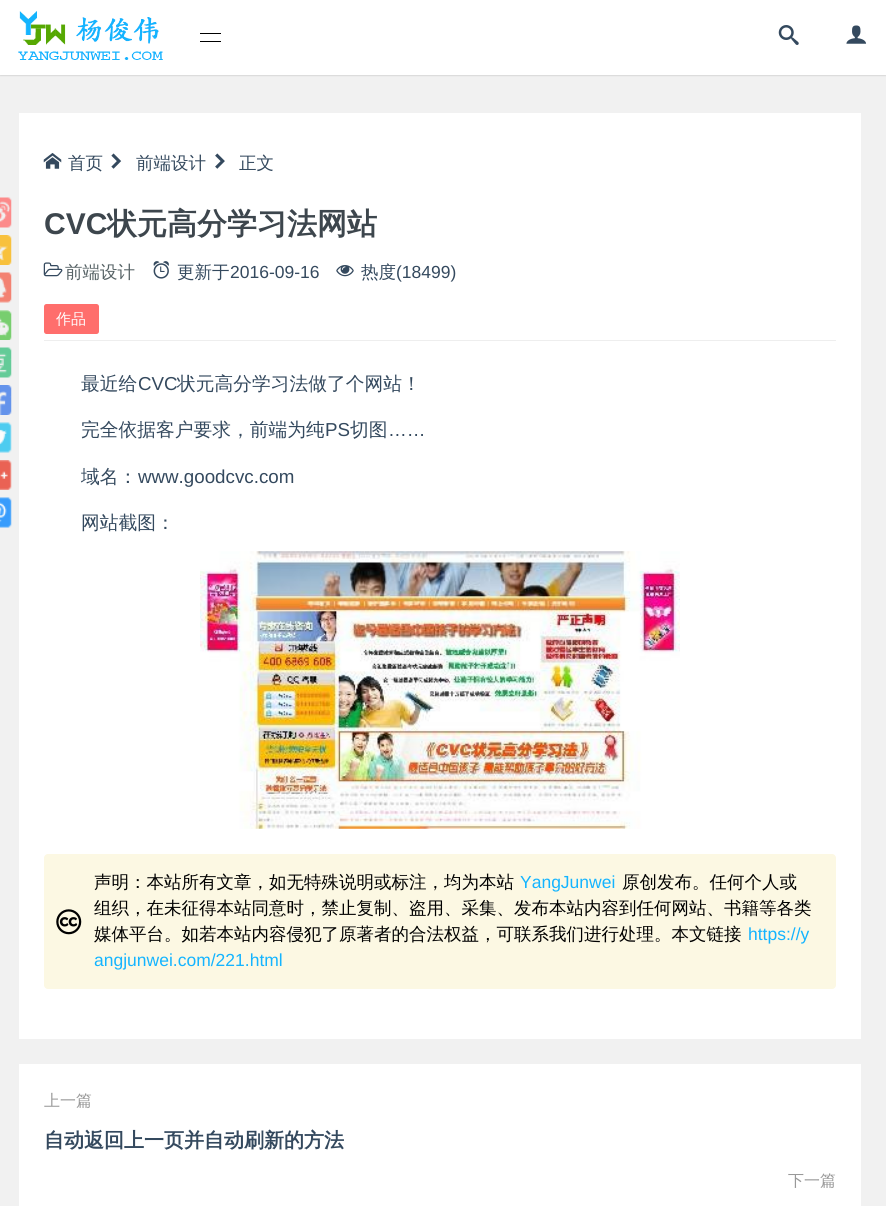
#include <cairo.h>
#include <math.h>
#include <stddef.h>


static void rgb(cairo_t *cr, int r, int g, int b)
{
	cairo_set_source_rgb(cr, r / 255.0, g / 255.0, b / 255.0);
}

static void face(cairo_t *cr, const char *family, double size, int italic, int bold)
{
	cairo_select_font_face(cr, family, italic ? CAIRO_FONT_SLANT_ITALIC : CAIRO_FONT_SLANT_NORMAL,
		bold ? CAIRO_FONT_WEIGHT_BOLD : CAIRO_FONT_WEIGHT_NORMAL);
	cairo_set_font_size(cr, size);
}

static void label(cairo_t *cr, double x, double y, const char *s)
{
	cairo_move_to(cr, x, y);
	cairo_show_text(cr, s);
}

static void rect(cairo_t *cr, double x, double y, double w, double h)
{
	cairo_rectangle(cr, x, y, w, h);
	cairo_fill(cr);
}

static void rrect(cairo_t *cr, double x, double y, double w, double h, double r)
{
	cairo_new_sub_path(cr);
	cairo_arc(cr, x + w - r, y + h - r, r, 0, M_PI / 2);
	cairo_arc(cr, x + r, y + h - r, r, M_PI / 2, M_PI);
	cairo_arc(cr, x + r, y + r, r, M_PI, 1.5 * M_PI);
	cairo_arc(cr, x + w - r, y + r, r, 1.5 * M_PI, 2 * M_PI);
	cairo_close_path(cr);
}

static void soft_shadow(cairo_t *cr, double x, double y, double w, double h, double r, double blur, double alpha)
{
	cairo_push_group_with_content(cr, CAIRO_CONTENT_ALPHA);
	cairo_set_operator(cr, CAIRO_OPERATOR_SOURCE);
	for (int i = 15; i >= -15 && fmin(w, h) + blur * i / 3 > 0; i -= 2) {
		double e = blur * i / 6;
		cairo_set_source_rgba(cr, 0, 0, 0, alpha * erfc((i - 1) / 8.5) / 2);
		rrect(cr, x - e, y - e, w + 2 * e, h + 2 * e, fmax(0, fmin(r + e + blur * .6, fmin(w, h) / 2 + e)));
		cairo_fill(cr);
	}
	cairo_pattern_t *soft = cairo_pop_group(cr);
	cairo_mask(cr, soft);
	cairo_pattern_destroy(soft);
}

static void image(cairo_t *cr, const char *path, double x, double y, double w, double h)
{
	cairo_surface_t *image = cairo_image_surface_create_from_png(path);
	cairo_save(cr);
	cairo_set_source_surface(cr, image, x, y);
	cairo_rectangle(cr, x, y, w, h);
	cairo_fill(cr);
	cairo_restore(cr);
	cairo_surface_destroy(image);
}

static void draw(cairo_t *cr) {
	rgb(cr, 241, 241, 241);
	cairo_paint(cr);
	rgb(cr, 0, 0, 0);
	soft_shadow(cr, 0, 1, 886, 75, 0, 0.5, 0.1);
	rgb(cr, 255, 255, 255);
	rect(cr, 0, 0, 886, 75);
	image(cr, "image0.png", 18, 11, 145, 49);
	rgb(cr, 0, 0, 0);
	rect(cr, 200, 33, 21, 1);
	rect(cr, 200, 41, 21, 1);
	image(cr, "image1.png", 778, 25, 21, 20);
	image(cr, "image2.png", 846, 25, 21, 19);
	rgb(cr, 255, 255, 255);
	rect(cr, 19, 113, 842, 926);
	image(cr, "image3.png", 43, 153, 19, 16);
	face(cr, "WenQuanYi Zen Hei Medium", 17.5, 0, 0);
	rgb(cr, 52, 73, 94);
	label(cr, 68, 169, "首页");
	image(cr, "image4.png", 111, 153, 11, 16);
	label(cr, 136, 169, "前端设计");
	image(cr, "image5.png", 215, 153, 10, 16);
	label(cr, 239, 169, "正文");
	image(cr, "image6.png", 0, 197, 12, 31);
	image(cr, "image7.png", 0, 235, 12, 30);
	image(cr, "image8.png", 0, 272, 12, 31);
	image(cr, "image9.png", 0, 310, 12, 30);
	image(cr, "image10.png", 0, 347, 12, 31);
	image(cr, "image11.png", 0, 385, 12, 30);
	image(cr, "image12.png", 0, 422, 12, 31);
	image(cr, "image13.png", 0, 460, 12, 30);
	image(cr, "image14.png", 0, 497, 12, 31);
	rgb(cr, 238, 238, 238);
	rect(cr, 44, 340, 792, 1);
	face(cr, "Liberation Sans", 30, 0, 1);
	rgb(cr, 61, 70, 77);
	label(cr, 44, 234, "CVC");
	face(cr, "WenQuanYi Zen Hei", 30, 0, 1);
	label(cr, 107, 234, "状元高分学习法网站");
	image(cr, "image15.png", 43, 262, 20, 15);
	face(cr, "WenQuanYi Zen Hei Medium", 17.5, 0, 0);
	rgb(cr, 87, 99, 102);
	label(cr, 65, 278, "前端设计");
	image(cr, "image16.png", 153, 261, 16, 18);
	rgb(cr, 52, 73, 94);
	label(cr, 177, 278, "更新于");
	face(cr, "Liberation Sans", 17.5, 0, 0);
	label(cr, 230, 278, "2016-09-16");
	image(cr, "image17.png", 336, 265, 18, 12);
	face(cr, "WenQuanYi Zen Hei Medium", 17.5, 0, 0);
	label(cr, 361, 278, "热度");
	face(cr, "Liberation Sans", 17.5, 0, 0);
	label(cr, 396, 278, "(18499)");
	rgb(cr, 255, 110, 108);
	rrect(cr, 44, 304, 55, 30, 2.5);
	cairo_fill(cr);
	face(cr, "WenQuanYi Zen Hei Medium", 15, 0, 0);
	rgb(cr, 255, 255, 255);
	label(cr, 56, 324, "作品");
	face(cr, "WenQuanYi Zen Hei Medium", 18.75, 0, 0);
	rgb(cr, 52, 73, 94);
	label(cr, 81, 390, "最近给");
	face(cr, "Liberation Sans", 18.75, 0, 0);
	label(cr, 138, 390, "CVC");
	face(cr, "WenQuanYi Zen Hei Medium", 18.75, 0, 0);
	label(cr, 177, 390, "状元高分学习法做了个网站！");
	label(cr, 81, 436, "完全依据客户要求，前端为纯");
	face(cr, "Liberation Sans", 18.75, 0, 0);
	label(cr, 325, 436, "PS");
	face(cr, "WenQuanYi Zen Hei Medium", 18.75, 0, 0);
	label(cr, 350, 436, "切图");
	face(cr, "Liberation Sans", 18.75, 0, 0);
	label(cr, 388, 436, "……");
	face(cr, "WenQuanYi Zen Hei Medium", 18.75, 0, 0);
	label(cr, 81, 483, "域名：");
	face(cr, "Liberation Sans", 18.75, 0, 0);
	label(cr, 138, 483, "www.goodcvc.com");
	face(cr, "WenQuanYi Zen Hei Medium", 18.75, 0, 0);
	label(cr, 81, 529, "网站截图：");
	image(cr, "image18.png", 200, 551, 480, 278);
	rgb(cr, 252, 248, 227);
	rrect(cr, 44, 854, 792, 135, 4);
	cairo_fill(cr);
	face(cr, "WenQuanYi Zen Hei Medium", 17.5, 0, 0);
	rgb(cr, 0, 0, 0);
	label(cr, 94, 888, "声明：本站所有文章，如无特殊说明或标注，均为本站");
	face(cr, "Liberation Sans", 17.5, 0, 0);
	rgb(cr, 20, 180, 255);
	label(cr, 520, 888, "YangJunwei");
	face(cr, "WenQuanYi Zen Hei Medium", 17.5, 0, 0);
	rgb(cr, 0, 0, 0);
	label(cr, 622, 888, "原创发布。任何个人或");
	image(cr, "image19.png", 56, 909, 26, 26);
	label(cr, 94, 914, "组织，在未征得本站同意时，禁止复制、盗用、采集、发布本站内容到任何网站、书籍等各类");
	label(cr, 94, 940, "媒体平台。如若本站内容侵犯了原著者的合法权益，可联系我们进行处理。本文链接");
	face(cr, "Liberation Sans", 17.5, 0, 0);
	rgb(cr, 20, 180, 255);
	label(cr, 748, 940, "https://y");
	label(cr, 94, 966, "angjunwei.com/221.html");
	rgb(cr, 255, 255, 255);
	rect(cr, 19, 1064, 842, 142);
	face(cr, "WenQuanYi Zen Hei Medium", 16, 0, 0);
	rgb(cr, 153, 153, 153);
	label(cr, 44, 1106, "上一篇");
	face(cr, "WenQuanYi Zen Hei", 20, 0, 1);
	rgb(cr, 52, 73, 94);
	label(cr, 44, 1147, "自动返回上一页并自动刷新的方法");
	face(cr, "WenQuanYi Zen Hei Medium", 16, 0, 0);
	rgb(cr, 153, 153, 153);
	label(cr, 788, 1186, "下一篇");
}

int main(void) {
	cairo_surface_t *surface = cairo_image_surface_create(CAIRO_FORMAT_RGB24, 886, 1206);
	cairo_t *cr = cairo_create(surface);
	cairo_font_options_t *options = cairo_font_options_create();
	cairo_font_options_set_hint_metrics(options, CAIRO_HINT_METRICS_OFF);
	cairo_font_options_set_hint_style(options, CAIRO_HINT_STYLE_NONE);
	cairo_set_font_options(cr, options);
	cairo_set_miter_limit(cr, 4);
	draw(cr);
	cairo_surface_write_to_png(surface, "render.png");
	cairo_font_options_destroy(options);
	cairo_destroy(cr);
	cairo_surface_destroy(surface);
	return 0;
}
